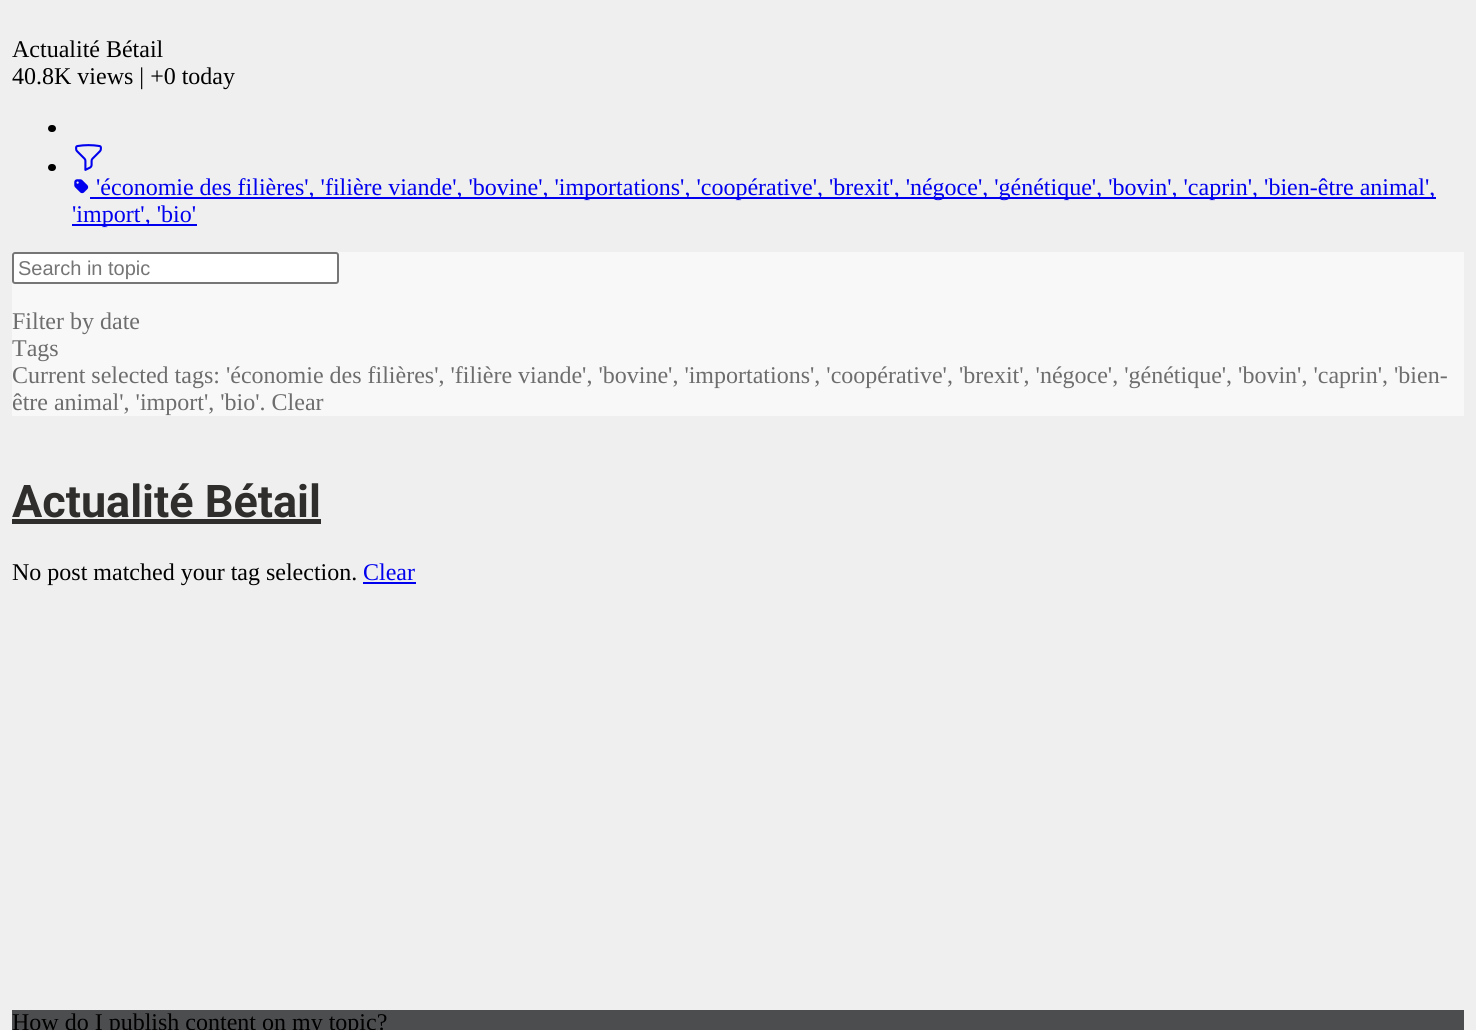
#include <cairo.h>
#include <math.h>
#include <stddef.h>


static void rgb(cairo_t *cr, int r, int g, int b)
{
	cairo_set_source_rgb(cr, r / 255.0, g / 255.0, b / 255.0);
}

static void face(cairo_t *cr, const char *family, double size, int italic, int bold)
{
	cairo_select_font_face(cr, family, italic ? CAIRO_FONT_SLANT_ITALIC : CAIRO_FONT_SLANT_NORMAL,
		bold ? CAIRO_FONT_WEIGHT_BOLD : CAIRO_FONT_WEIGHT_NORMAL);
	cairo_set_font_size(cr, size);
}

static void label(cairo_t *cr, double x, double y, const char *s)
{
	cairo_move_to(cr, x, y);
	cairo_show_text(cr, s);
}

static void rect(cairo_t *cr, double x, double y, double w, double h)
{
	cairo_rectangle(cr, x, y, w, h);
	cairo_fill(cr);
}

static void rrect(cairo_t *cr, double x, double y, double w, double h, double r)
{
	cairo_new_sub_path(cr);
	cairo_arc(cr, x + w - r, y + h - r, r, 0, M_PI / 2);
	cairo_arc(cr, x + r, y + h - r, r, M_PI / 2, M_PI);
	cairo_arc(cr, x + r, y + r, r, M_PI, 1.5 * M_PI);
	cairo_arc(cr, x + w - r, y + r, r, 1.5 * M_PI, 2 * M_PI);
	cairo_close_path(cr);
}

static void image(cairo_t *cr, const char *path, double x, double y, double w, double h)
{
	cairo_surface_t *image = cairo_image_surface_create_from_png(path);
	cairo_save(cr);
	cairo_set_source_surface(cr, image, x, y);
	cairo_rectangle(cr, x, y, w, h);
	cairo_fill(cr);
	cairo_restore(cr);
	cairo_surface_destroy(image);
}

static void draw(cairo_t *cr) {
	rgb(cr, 239, 239, 239);
	cairo_paint(cr);
	face(cr, "Liberation Serif", 24, 0, 0);
	rgb(cr, 0, 0, 0);
	label(cr, 12, 57, "Actualité Bétail");
	label(cr, 12, 84, "40.8K views | +0 today");
	rrect(cr, 48, 125, 8, 7, 3.5);
	cairo_fill(cr);
	rrect(cr, 48, 164, 8, 7, 3.5);
	cairo_fill(cr);
	image(cr, "image0.png", 75, 144, 27, 27);
	image(cr, "image1.png", 74, 179, 15, 15);
	rgb(cr, 0, 0, 238);
	rect(cr, 90, 197, 1346, 2);
	label(cr, 96, 195, "'économie des filières', 'filière viande', 'bovine', 'importations', 'coopérative', 'brexit', 'négoce', 'génétique', 'bovin', 'caprin', 'bien-être animal',");
	rect(cr, 72, 224, 125, 2);
	label(cr, 72, 222, "'import', 'bio'");
	rgb(cr, 248, 248, 248);
	rect(cr, 12, 252, 1452, 164);
	rgb(cr, 255, 255, 255);
	rrect(cr, 13, 253, 325, 30, 2);
	cairo_fill_preserve(cr);
	rgb(cr, 118, 118, 118);
	cairo_stroke(cr);
	face(cr, "Liberation Sans", 20, 0, 0);
	rgb(cr, 117, 117, 117);
	label(cr, 18, 275, "Search in topic");
	face(cr, "Liberation Serif", 24, 0, 0);
	rgb(cr, 109, 109, 109);
	label(cr, 12, 329, "Filter by date");
	label(cr, 12, 356, "Tags");
	label(cr, 12, 383, "Current selected tags: 'économie des filières', 'filière viande', 'bovine', 'importations', 'coopérative', 'brexit', 'négoce', 'génétique', 'bovin', 'caprin', 'bien-");
	label(cr, 12, 410, "être animal', 'import', 'bio'. Clear");
	face(cr, "Roboto", 45, 0, 1);
	rgb(cr, 47, 46, 44);
	label(cr, 12, 517, "Actualité Bétail");
	rect(cr, 12, 519, 309, 5);
	face(cr, "Liberation Serif", 24, 0, 0);
	rgb(cr, 0, 0, 0);
	label(cr, 12, 580, "No post matched your tag selection.");
	rgb(cr, 0, 0, 238);
	label(cr, 363, 580, "Clear");
	rect(cr, 363, 582, 53, 2);
	rgb(cr, 76, 77, 79);
	rect(cr, 12, 1010, 1452, 20);
	rgb(cr, 0, 0, 0);
	label(cr, 12, 1030, "How do I publish content on my topic?");
}

int main(void) {
	cairo_surface_t *surface = cairo_image_surface_create(CAIRO_FORMAT_RGB24, 1476, 1030);
	cairo_t *cr = cairo_create(surface);
	cairo_font_options_t *options = cairo_font_options_create();
	cairo_font_options_set_hint_metrics(options, CAIRO_HINT_METRICS_OFF);
	cairo_font_options_set_hint_style(options, CAIRO_HINT_STYLE_NONE);
	cairo_set_font_options(cr, options);
	cairo_set_miter_limit(cr, 4);
	draw(cr);
	cairo_surface_write_to_png(surface, "render.png");
	cairo_font_options_destroy(options);
	cairo_destroy(cr);
	cairo_surface_destroy(surface);
	return 0;
}
